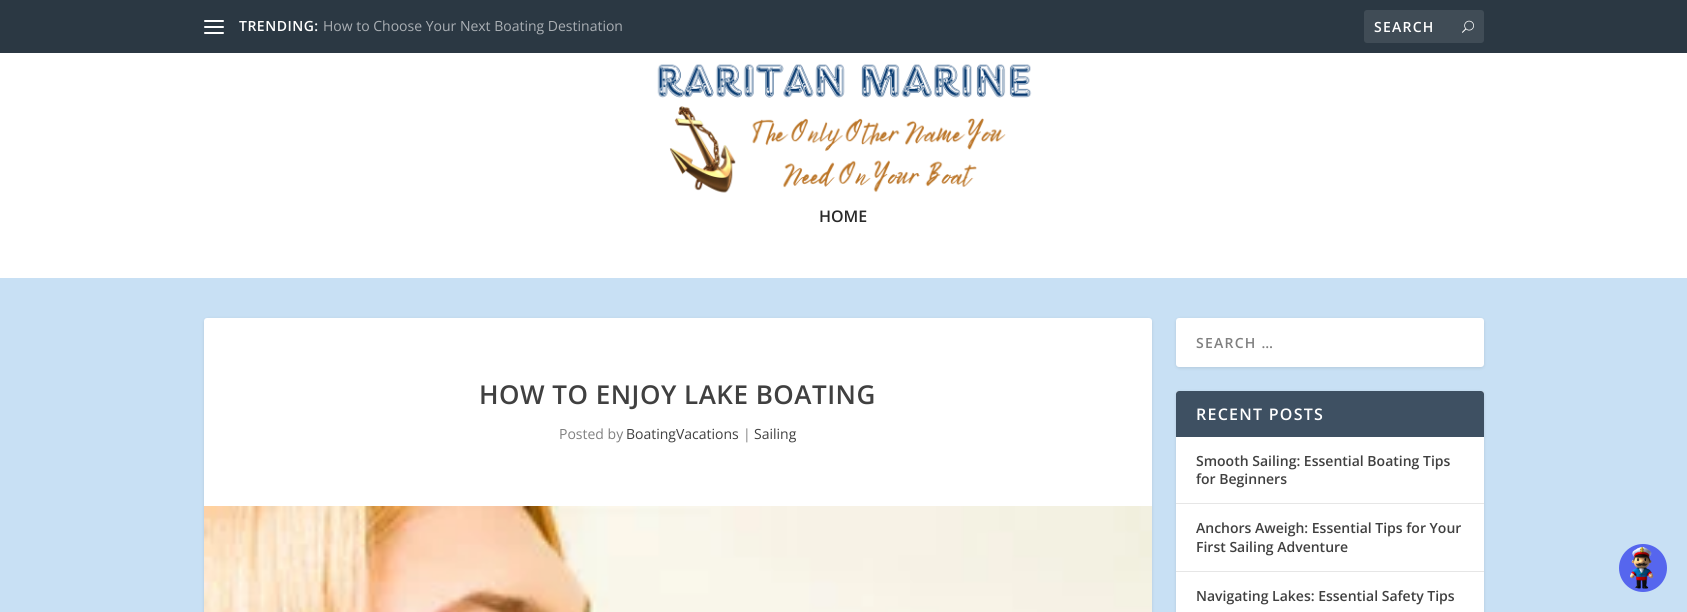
#include <cairo.h>
#include <math.h>
#include <stddef.h>


static void rgb(cairo_t *cr, int r, int g, int b)
{
	cairo_set_source_rgb(cr, r / 255.0, g / 255.0, b / 255.0);
}

static void face(cairo_t *cr, const char *family, double size, int italic, int bold)
{
	cairo_select_font_face(cr, family, italic ? CAIRO_FONT_SLANT_ITALIC : CAIRO_FONT_SLANT_NORMAL,
		bold ? CAIRO_FONT_WEIGHT_BOLD : CAIRO_FONT_WEIGHT_NORMAL);
	cairo_set_font_size(cr, size);
}

static void label(cairo_t *cr, double x, double y, const char *s)
{
	cairo_move_to(cr, x, y);
	cairo_show_text(cr, s);
}

static void tracked(cairo_t *cr, double x, double y, const char *s, double letter, double word)
{
	cairo_move_to(cr, x, y);
	while (*s) {
		char ch[5] = {0};
		int n = 0;
		do ch[n++] = *s++; while ((*s & 0xC0) == 0x80);
		cairo_show_text(cr, ch);
		cairo_rel_move_to(cr, letter + word * (*ch == ' '), 0);
	}
}

static void rect(cairo_t *cr, double x, double y, double w, double h)
{
	cairo_rectangle(cr, x, y, w, h);
	cairo_fill(cr);
}

static void rrect(cairo_t *cr, double x, double y, double w, double h, double r)
{
	cairo_new_sub_path(cr);
	cairo_arc(cr, x + w - r, y + h - r, r, 0, M_PI / 2);
	cairo_arc(cr, x + r, y + h - r, r, M_PI / 2, M_PI);
	cairo_arc(cr, x + r, y + r, r, M_PI, 1.5 * M_PI);
	cairo_arc(cr, x + w - r, y + r, r, 1.5 * M_PI, 2 * M_PI);
	cairo_close_path(cr);
}

static void soft_shadow(cairo_t *cr, double x, double y, double w, double h, double r, double blur, double alpha)
{
	cairo_push_group_with_content(cr, CAIRO_CONTENT_ALPHA);
	cairo_set_operator(cr, CAIRO_OPERATOR_SOURCE);
	for (int i = 15; i >= -15 && fmin(w, h) + blur * i / 3 > 0; i -= 2) {
		double e = blur * i / 6;
		cairo_set_source_rgba(cr, 0, 0, 0, alpha * erfc((i - 1) / 8.5) / 2);
		rrect(cr, x - e, y - e, w + 2 * e, h + 2 * e, fmax(0, fmin(r + e + blur * .6, fmin(w, h) / 2 + e)));
		cairo_fill(cr);
	}
	cairo_pattern_t *soft = cairo_pop_group(cr);
	cairo_mask(cr, soft);
	cairo_pattern_destroy(soft);
}

static void image(cairo_t *cr, const char *path, double x, double y, double w, double h)
{
	cairo_surface_t *image = cairo_image_surface_create_from_png(path);
	cairo_save(cr);
	cairo_set_source_surface(cr, image, x, y);
	cairo_rectangle(cr, x, y, w, h);
	cairo_fill(cr);
	cairo_restore(cr);
	cairo_surface_destroy(image);
}

static void draw(cairo_t *cr) {
	rgb(cr, 200, 224, 244);
	cairo_paint(cr);
	rgb(cr, 43, 56, 67);
	rect(cr, 0, 0, 1687, 53);
	rgb(cr, 255, 255, 255);
	rrect(cr, 204, 20, 20, 2, 1);
	cairo_fill(cr);
	rrect(cr, 204, 26, 20, 2, 1);
	cairo_fill(cr);
	rrect(cr, 204, 32, 20, 2, 1);
	cairo_fill(cr);
	face(cr, "Open Sans SemiBold", 14, 0, 0);
	tracked(cr, 239, 31, "TRENDING:", 0.5, 0);
	face(cr, "Open Sans", 14, 0, 0);
	rgb(cr, 170, 175, 180);
	label(cr, 323, 31, "How to Choose Your Next Boating Destination");
	rgb(cr, 64, 76, 86);
	rrect(cr, 1364, 10, 120, 33, 3);
	cairo_fill(cr);
	face(cr, "Open Sans SemiBold", 14, 0, 0);
	rgb(cr, 255, 255, 255);
	tracked(cr, 1374, 32, "SEARCH", 1.25, 0);
	image(cr, "image0.png", 1462, 20, 12, 13);
	rect(cr, 0, 53, 1687, 225);
	image(cr, "image1.png", 657, 64, 375, 129);
	face(cr, "Open Sans SemiBold", 16, 0, 0);
	rgb(cr, 41, 41, 41);
	label(cr, 819, 222, "HOME");
	rgb(cr, 0, 0, 0);
	soft_shadow(cr, 204, 319, 948, 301, 3, 1.5, 0.1);
	rgb(cr, 255, 255, 255);
	rrect(cr, 204, 318, 948, 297, 3);
	cairo_fill(cr);
	face(cr, "Open Sans SemiBold", 26, 0, 0);
	rgb(cr, 64, 64, 64);
	tracked(cr, 479, 404, "HOW TO ENJOY LAKE BOATING", 0.5, 0);
	face(cr, "Open Sans", 14, 0, 0);
	rgb(cr, 128, 128, 128);
	label(cr, 559, 439, "Posted by");
	rgb(cr, 64, 64, 64);
	label(cr, 626, 439, "BoatingVacations");
	rgb(cr, 128, 128, 128);
	label(cr, 743, 439, "|");
	rgb(cr, 64, 64, 64);
	label(cr, 754, 439, "Sailing");
	image(cr, "image2.png", 204, 506, 948, 106);
	rgb(cr, 0, 0, 0);
	soft_shadow(cr, 1176, 319, 308, 49, 3, 1.5, 0.1);
	rgb(cr, 255, 255, 255);
	rrect(cr, 1176, 318, 308, 49, 3);
	cairo_fill(cr);
	face(cr, "Open Sans SemiBold", 14, 0, 0);
	rgb(cr, 128, 128, 128);
	tracked(cr, 1196, 348, "SEARCH …", 1.25, 0);
	rgb(cr, 0, 0, 0);
	soft_shadow(cr, 1176, 392, 308, 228, 3, 1.5, 0.1);
	rgb(cr, 255, 255, 255);
	rrect(cr, 1176, 391, 308, 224, 3);
	cairo_fill(cr);
	rgb(cr, 62, 80, 98);
	cairo_new_path(cr);
	cairo_move_to(cr, 1179, 391);
	cairo_line_to(cr, 1481, 391);
	cairo_curve_to(cr, 1482.5, 391, 1484, 392.5, 1484, 394);
	cairo_line_to(cr, 1484, 437);
	cairo_line_to(cr, 1176, 437);
	cairo_line_to(cr, 1176, 394);
	cairo_curve_to(cr, 1176, 392.5, 1177.5, 391, 1179, 391);
	cairo_close_path(cr);
	cairo_fill(cr);
	face(cr, "Open Sans SemiBold", 16, 0, 0);
	rgb(cr, 255, 255, 255);
	tracked(cr, 1196, 420, "RECENT POSTS", 1.25, 0);
	rgb(cr, 230, 230, 230);
	rect(cr, 1176, 503, 308, 1);
	face(cr, "Open Sans SemiBold", 14, 0, 0);
	rgb(cr, 64, 64, 64);
	label(cr, 1196, 466, "Smooth Sailing: Essential Boating Tips");
	label(cr, 1196, 484, "for Beginners");
	rgb(cr, 230, 230, 230);
	rect(cr, 1176, 571, 308, 1);
	rgb(cr, 64, 64, 64);
	label(cr, 1196, 533, "Anchors Aweigh: Essential Tips for Your");
	label(cr, 1196, 552, "First Sailing Adventure");
	label(cr, 1196, 601, "Navigating Lakes: Essential Safety Tips");
	rgb(cr, 86, 102, 238);
	cairo_new_path(cr);
	cairo_arc(cr, 1643, 568, 24, 0, 2 * M_PI);
	cairo_fill(cr);
	image(cr, "image3.png", 1630, 547, 24, 42);
}

int main(void) {
	cairo_surface_t *surface = cairo_image_surface_create(CAIRO_FORMAT_RGB24, 1687, 612);
	cairo_t *cr = cairo_create(surface);
	cairo_font_options_t *options = cairo_font_options_create();
	cairo_font_options_set_hint_metrics(options, CAIRO_HINT_METRICS_OFF);
	cairo_font_options_set_hint_style(options, CAIRO_HINT_STYLE_NONE);
	cairo_set_font_options(cr, options);
	cairo_set_miter_limit(cr, 4);
	draw(cr);
	cairo_surface_write_to_png(surface, "render.png");
	cairo_font_options_destroy(options);
	cairo_destroy(cr);
	cairo_surface_destroy(surface);
	return 0;
}
